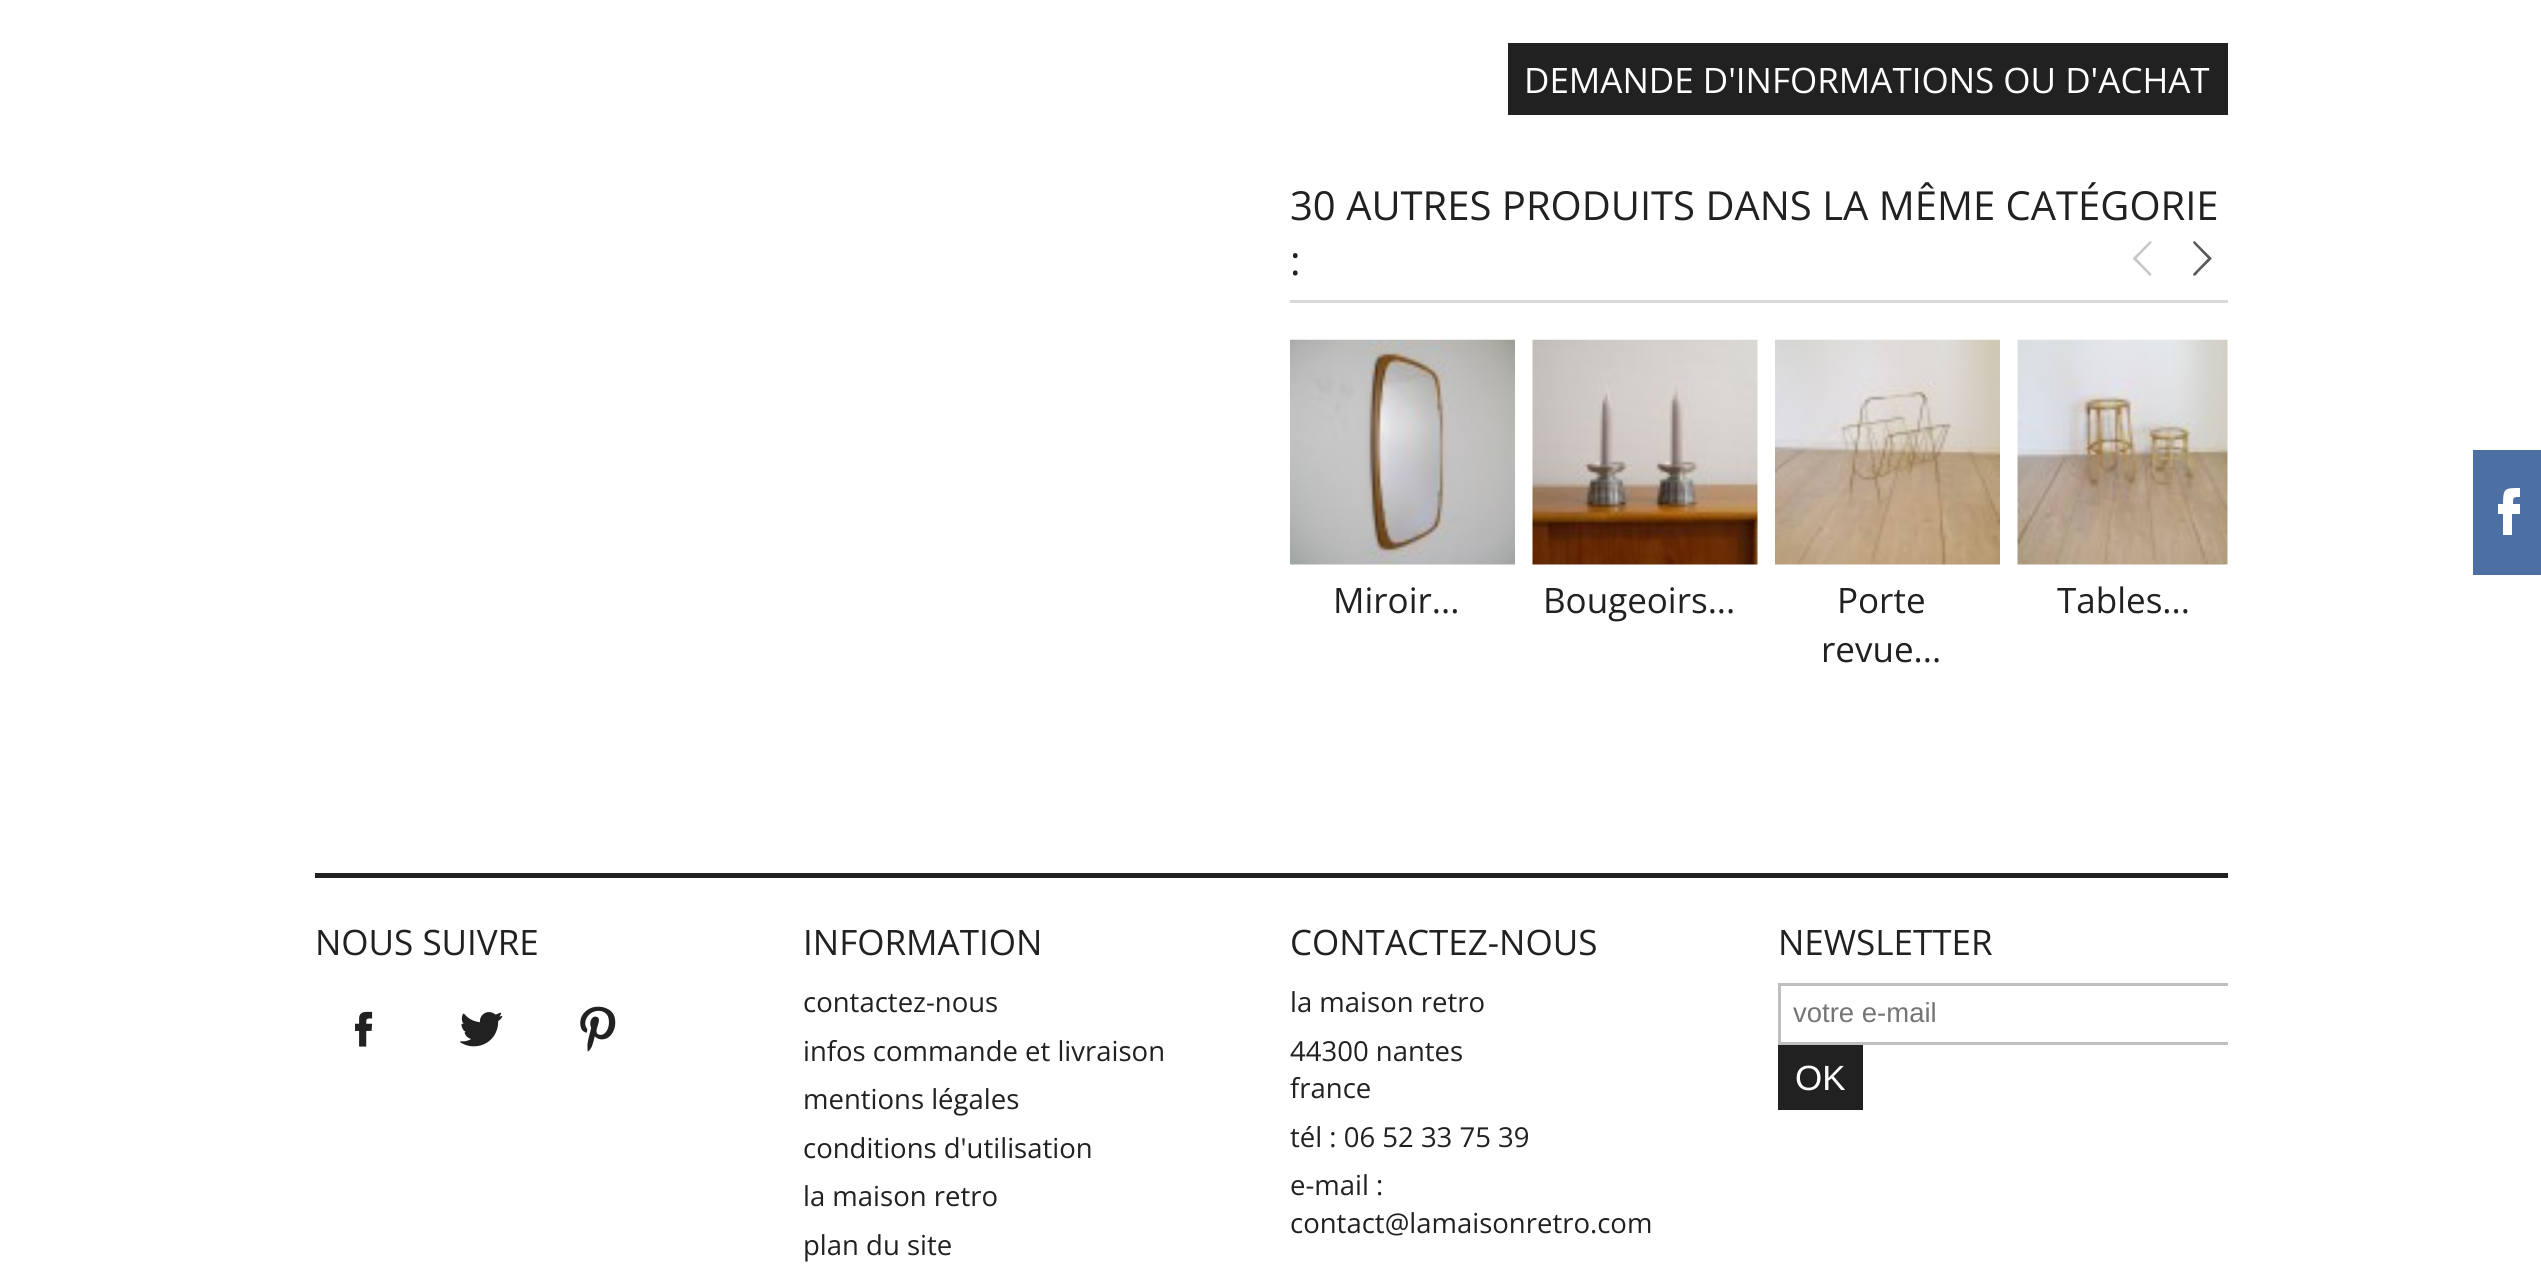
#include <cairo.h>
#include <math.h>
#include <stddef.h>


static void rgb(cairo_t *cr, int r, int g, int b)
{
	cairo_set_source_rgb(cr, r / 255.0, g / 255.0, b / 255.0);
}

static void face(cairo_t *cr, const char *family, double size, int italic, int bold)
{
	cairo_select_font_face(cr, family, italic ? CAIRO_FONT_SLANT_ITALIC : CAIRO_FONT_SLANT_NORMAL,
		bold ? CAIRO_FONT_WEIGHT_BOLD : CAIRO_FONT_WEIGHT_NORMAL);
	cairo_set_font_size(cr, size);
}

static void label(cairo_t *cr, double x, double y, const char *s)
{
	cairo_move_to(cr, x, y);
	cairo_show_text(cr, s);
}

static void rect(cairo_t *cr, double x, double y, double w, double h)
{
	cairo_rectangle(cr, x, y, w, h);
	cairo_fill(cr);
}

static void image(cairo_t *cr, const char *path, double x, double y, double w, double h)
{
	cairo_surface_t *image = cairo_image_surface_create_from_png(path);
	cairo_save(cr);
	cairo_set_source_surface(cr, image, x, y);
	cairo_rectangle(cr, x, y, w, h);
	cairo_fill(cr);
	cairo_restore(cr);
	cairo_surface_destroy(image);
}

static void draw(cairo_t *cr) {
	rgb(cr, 255, 255, 255);
	cairo_paint(cr);
	rgb(cr, 33, 33, 33);
	rect(cr, 1508, 43, 720, 72);
	face(cr, "Open Sans", 35, 0, 0);
	rgb(cr, 255, 255, 255);
	label(cr, 1524, 93, "DEMANDE D'INFORMATIONS OU D'ACHAT");
	rgb(cr, 217, 217, 217);
	rect(cr, 1290, 300, 938, 3);
	face(cr, "Open Sans", 40, 0, 0);
	rgb(cr, 33, 33, 33);
	label(cr, 1290, 220, "30 AUTRES PRODUITS DANS LA MÊME CATÉGORIE");
	label(cr, 1290, 275, ":");
	rgb(cr, 200, 200, 200);
	cairo_new_path(cr);
	cairo_move_to(cr, 2151, 273.5);
	cairo_line_to(cr, 2151.5, 274.5);
	cairo_curve_to(cr, 2150.5, 278, 2147, 273, 2146.5, 272.5);
	cairo_line_to(cr, 2133, 259);
	cairo_line_to(cr, 2133, 258);
	cairo_line_to(cr, 2149.5, 241.5);
	cairo_line_to(cr, 2150.5, 241);
	cairo_curve_to(cr, 2153.5, 242, 2149, 245.5, 2148.5, 246);
	cairo_line_to(cr, 2136.5, 258.5);
	cairo_close_path(cr);
	cairo_fill(cr);
	rgb(cr, 89, 89, 89);
	cairo_new_path(cr);
	cairo_move_to(cr, 2193.5, 273.5);
	cairo_line_to(cr, 2208, 258.5);
	cairo_line_to(cr, 2196, 246);
	cairo_curve_to(cr, 2195.5, 245.5, 2191, 242, 2194.5, 241);
	cairo_line_to(cr, 2195, 241.5);
	cairo_line_to(cr, 2211.5, 258);
	cairo_line_to(cr, 2211.5, 259);
	cairo_line_to(cr, 2198, 272.5);
	cairo_curve_to(cr, 2198, 273, 2194, 278, 2193, 274.5);
	cairo_close_path(cr);
	cairo_fill(cr);
	image(cr, "image0.png", 1290, 339, 225, 226);
	face(cr, "Open Sans", 35, 0, 0);
	rgb(cr, 33, 33, 33);
	label(cr, 1333, 613, "Miroir...");
	image(cr, "image1.png", 1532, 339, 226, 226);
	label(cr, 1543, 613, "Bougeoirs...");
	image(cr, "image2.png", 1775, 339, 225, 226);
	label(cr, 1837, 613, "Porte");
	label(cr, 1821, 662, "revue...");
	image(cr, "image3.png", 2017, 339, 211, 226);
	label(cr, 2057, 613, "Tables...");
	rect(cr, 315, 873, 1913, 5);
	rgb(cr, 76, 111, 164);
	rect(cr, 2473, 450, 68, 125);
	rgb(cr, 255, 255, 255);
	cairo_new_path(cr);
	cairo_move_to(cr, 2520, 497);
	cairo_curve_to(cr, 2513, 497, 2513, 497, 2513, 504);
	cairo_line_to(cr, 2520, 504);
	cairo_line_to(cr, 2520, 514);
	cairo_line_to(cr, 2512, 514);
	cairo_line_to(cr, 2512, 535);
	cairo_line_to(cr, 2503, 535);
	cairo_line_to(cr, 2503, 514);
	cairo_line_to(cr, 2498, 514);
	cairo_line_to(cr, 2498, 504);
	cairo_line_to(cr, 2503, 504);
	cairo_curve_to(cr, 2503, 488, 2505, 488, 2520, 488);
	cairo_close_path(cr);
	cairo_fill(cr);
	rgb(cr, 33, 33, 33);
	label(cr, 315, 955, "NOUS SUIVRE");
	image(cr, "image4.png", 355, 1011, 18, 36);
	image(cr, "image5.png", 460, 1012, 43, 35);
	image(cr, "image6.png", 580, 1006, 36, 46);
	label(cr, 803, 955, "INFORMATION");
	face(cr, "Open Sans", 27.5, 0, 0);
	label(cr, 803, 1012, "contactez-nous");
	label(cr, 803, 1061, "infos commande et livraison");
	label(cr, 803, 1109, "mentions légales");
	label(cr, 803, 1158, "conditions d'utilisation");
	label(cr, 803, 1206, "la maison retro");
	label(cr, 803, 1255, "plan du site");
	face(cr, "Open Sans", 35, 0, 0);
	label(cr, 1290, 955, "CONTACTEZ-NOUS");
	face(cr, "Open Sans", 27.5, 0, 0);
	label(cr, 1290, 1012, "la maison retro");
	label(cr, 1290, 1061, "44300 nantes");
	label(cr, 1290, 1098, "france");
	label(cr, 1290, 1147, "tél : 06 52 33 75 39");
	label(cr, 1290, 1195, "e-mail :");
	label(cr, 1290, 1233, "contact@lamaisonretro.com");
	face(cr, "Open Sans", 35, 0, 0);
	label(cr, 1778, 955, "NEWSLETTER");
	cairo_save(cr);
	cairo_rectangle(cr, 315, 878, 1913, 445);
	cairo_clip(cr);
	cairo_rectangle(cr, 1779.5, 984.5, 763, 59);
	rgb(cr, 191, 191, 191);
	cairo_set_line_width(cr, 3);
	cairo_stroke(cr);
	cairo_restore(cr);
	face(cr, "Liberation Sans", 27.5, 0, 0);
	rgb(cr, 117, 117, 117);
	label(cr, 1793, 1022, "votre e-mail");
	rgb(cr, 33, 33, 33);
	rect(cr, 1778, 1045, 85, 65);
	face(cr, "Liberation Sans", 35, 0, 0);
	rgb(cr, 255, 255, 255);
	label(cr, 1795, 1090, "OK");
}

int main(void) {
	cairo_surface_t *surface = cairo_image_surface_create(CAIRO_FORMAT_RGB24, 2541, 1288);
	cairo_t *cr = cairo_create(surface);
	cairo_font_options_t *options = cairo_font_options_create();
	cairo_font_options_set_hint_metrics(options, CAIRO_HINT_METRICS_OFF);
	cairo_font_options_set_hint_style(options, CAIRO_HINT_STYLE_NONE);
	cairo_set_font_options(cr, options);
	cairo_set_miter_limit(cr, 4);
	draw(cr);
	cairo_surface_write_to_png(surface, "render.png");
	cairo_font_options_destroy(options);
	cairo_destroy(cr);
	cairo_surface_destroy(surface);
	return 0;
}
